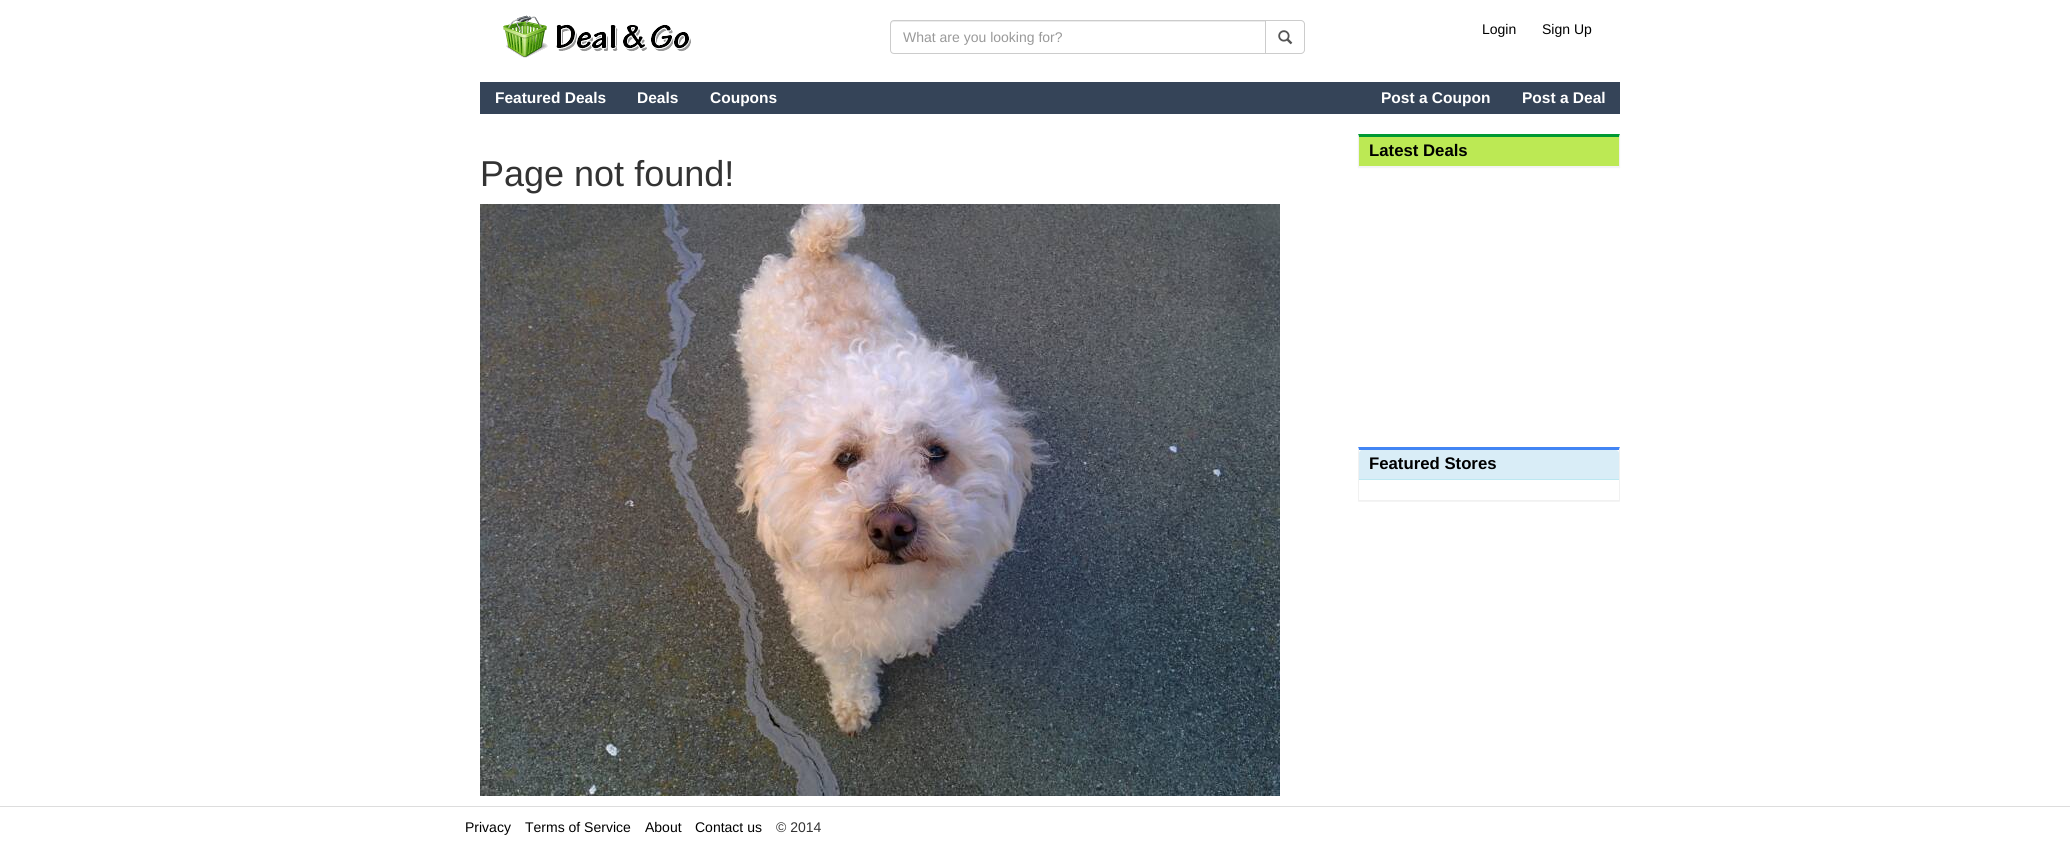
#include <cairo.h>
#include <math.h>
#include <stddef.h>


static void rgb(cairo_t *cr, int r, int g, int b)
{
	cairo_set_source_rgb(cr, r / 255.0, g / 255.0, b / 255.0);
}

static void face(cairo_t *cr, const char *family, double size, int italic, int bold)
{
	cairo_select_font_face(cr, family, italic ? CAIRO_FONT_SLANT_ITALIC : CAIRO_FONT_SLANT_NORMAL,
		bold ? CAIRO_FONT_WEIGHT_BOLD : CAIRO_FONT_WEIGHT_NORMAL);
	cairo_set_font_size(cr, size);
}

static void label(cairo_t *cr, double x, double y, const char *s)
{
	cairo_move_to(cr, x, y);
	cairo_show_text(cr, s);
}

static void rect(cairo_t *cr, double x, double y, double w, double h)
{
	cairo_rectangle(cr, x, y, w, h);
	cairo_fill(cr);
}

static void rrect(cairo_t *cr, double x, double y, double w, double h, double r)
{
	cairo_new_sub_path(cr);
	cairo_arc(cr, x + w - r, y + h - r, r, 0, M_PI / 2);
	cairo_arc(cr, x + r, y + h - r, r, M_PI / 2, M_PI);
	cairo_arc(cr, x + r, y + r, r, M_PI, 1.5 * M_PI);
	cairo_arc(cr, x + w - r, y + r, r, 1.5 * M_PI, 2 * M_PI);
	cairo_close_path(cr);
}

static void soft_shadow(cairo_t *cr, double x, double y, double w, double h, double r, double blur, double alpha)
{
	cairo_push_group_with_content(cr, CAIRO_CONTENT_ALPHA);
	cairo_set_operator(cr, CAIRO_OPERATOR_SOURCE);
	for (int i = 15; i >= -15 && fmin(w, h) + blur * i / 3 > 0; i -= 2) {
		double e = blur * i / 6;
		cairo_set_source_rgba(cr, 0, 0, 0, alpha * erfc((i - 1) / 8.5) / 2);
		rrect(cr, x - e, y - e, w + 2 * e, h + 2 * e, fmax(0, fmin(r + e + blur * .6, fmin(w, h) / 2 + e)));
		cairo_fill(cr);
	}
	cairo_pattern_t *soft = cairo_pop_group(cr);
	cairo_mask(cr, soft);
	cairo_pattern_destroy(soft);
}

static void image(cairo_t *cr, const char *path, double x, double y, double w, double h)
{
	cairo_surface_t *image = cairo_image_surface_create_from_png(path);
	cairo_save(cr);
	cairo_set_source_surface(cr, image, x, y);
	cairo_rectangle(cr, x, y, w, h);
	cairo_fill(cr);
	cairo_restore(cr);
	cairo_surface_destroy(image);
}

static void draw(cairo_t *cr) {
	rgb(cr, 255, 255, 255);
	cairo_paint(cr);
	image(cr, "image0.png", 503, 15, 188, 43);
	rgb(cr, 236, 236, 236);
	cairo_new_path(cr);
	cairo_move_to(cr, 894, 22);
	cairo_line_to(cr, 1265, 22);
	cairo_line_to(cr, 1265, 21);
	cairo_line_to(cr, 894, 21);
	cairo_curve_to(cr, 892, 21, 891, 22, 891, 24);
	cairo_line_to(cr, 891, 25);
	cairo_curve_to(cr, 891, 23, 892, 22, 894, 22);
	cairo_close_path(cr);
	cairo_fill(cr);
	cairo_new_path(cr);
	cairo_move_to(cr, 894, 20.5);
	cairo_line_to(cr, 1265.5, 20.5);
	cairo_line_to(cr, 1265.5, 53.5);
	cairo_line_to(cr, 894, 53.5);
	cairo_curve_to(cr, 892, 53.5, 890.5, 52, 890.5, 50);
	cairo_line_to(cr, 890.5, 24);
	cairo_curve_to(cr, 890.5, 22, 892, 20.5, 894, 20.5);
	cairo_close_path(cr);
	rgb(cr, 204, 204, 204);
	cairo_set_line_width(cr, 1);
	cairo_stroke(cr);
	face(cr, "Liberation Sans", 14, 0, 0);
	rgb(cr, 153, 153, 153);
	label(cr, 903, 42, "What are you looking for?");
	rgb(cr, 204, 204, 204);
	cairo_set_fill_rule(cr, CAIRO_FILL_RULE_EVEN_ODD);
	cairo_new_path(cr);
	cairo_move_to(cr, 1266, 20);
	cairo_line_to(cr, 1301, 20);
	cairo_curve_to(cr, 1303, 20, 1305, 22, 1305, 24);
	cairo_line_to(cr, 1305, 50);
	cairo_curve_to(cr, 1305, 52, 1303, 54, 1301, 54);
	cairo_line_to(cr, 1266, 54);
	cairo_close_path(cr);
	cairo_move_to(cr, 1266, 21);
	cairo_line_to(cr, 1301, 21);
	cairo_curve_to(cr, 1302.5, 21, 1304, 22.5, 1304, 24);
	cairo_line_to(cr, 1304, 50);
	cairo_curve_to(cr, 1304, 51.5, 1302.5, 53, 1301, 53);
	cairo_line_to(cr, 1266, 53);
	cairo_close_path(cr);
	cairo_fill(cr);
	image(cr, "image1.png", 1278, 30, 15, 15);
	rgb(cr, 0, 0, 0);
	label(cr, 1482, 34, "Login");
	label(cr, 1542, 34, "Sign Up");
	rgb(cr, 53, 68, 88);
	rect(cr, 480, 82, 1140, 32);
	face(cr, "Liberation Sans", 15.5, 0, 1);
	rgb(cr, 255, 255, 255);
	label(cr, 495, 103, "Featured Deals");
	label(cr, 637, 103, "Deals");
	label(cr, 710, 103, "Coupons");
	label(cr, 1381, 103, "Post a Coupon");
	label(cr, 1522, 103, "Post a Deal");
	face(cr, "Liberation Sans", 36, 0, 0);
	rgb(cr, 51, 51, 51);
	label(cr, 480, 186, "Page not found!");
	image(cr, "image2.png", 480, 204, 800, 592);
	rgb(cr, 0, 0, 0);
	soft_shadow(cr, 1358, 135, 262, 33, 0, 0.5, 0.05);
	rgb(cr, 188, 233, 84);
	rect(cr, 1359, 137, 260, 29);
	rgb(cr, 0, 153, 51);
	cairo_set_fill_rule(cr, CAIRO_FILL_RULE_WINDING);
	cairo_new_path(cr);
	cairo_move_to(cr, 1358, 134);
	cairo_line_to(cr, 1620, 134);
	cairo_line_to(cr, 1619, 137);
	cairo_line_to(cr, 1359, 137);
	cairo_close_path(cr);
	cairo_fill(cr);
	rgb(cr, 241, 241, 241);
	cairo_new_path(cr);
	cairo_move_to(cr, 1620, 134);
	cairo_line_to(cr, 1620, 167);
	cairo_line_to(cr, 1619, 166);
	cairo_line_to(cr, 1619, 137);
	cairo_close_path(cr);
	cairo_fill(cr);
	rect(cr, 1358, 166, 1, 1);
	cairo_new_path(cr);
	cairo_move_to(cr, 1358, 167);
	cairo_line_to(cr, 1358, 134);
	cairo_line_to(cr, 1359, 137);
	cairo_line_to(cr, 1359, 166);
	cairo_close_path(cr);
	cairo_fill(cr);
	face(cr, "Liberation Sans", 16.75, 0, 1);
	rgb(cr, 0, 0, 0);
	label(cr, 1369, 156, "Latest Deals");
	cairo_save(cr);
	cairo_rectangle(cr, 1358, 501, 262, 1);
	cairo_clip(cr);
	rgb(cr, 0, 0, 0);
	soft_shadow(cr, 1358, 448, 262, 54, 0, 0.5, 0.05);
	cairo_restore(cr);
	rgb(cr, 66, 133, 244);
	cairo_new_path(cr);
	cairo_move_to(cr, 1358, 447);
	cairo_line_to(cr, 1620, 447);
	cairo_line_to(cr, 1619, 450);
	cairo_line_to(cr, 1359, 450);
	cairo_close_path(cr);
	cairo_fill(cr);
	rgb(cr, 241, 241, 241);
	cairo_new_path(cr);
	cairo_move_to(cr, 1620, 447);
	cairo_line_to(cr, 1620, 501);
	cairo_line_to(cr, 1619, 500);
	cairo_line_to(cr, 1619, 450);
	cairo_close_path(cr);
	cairo_fill(cr);
	rect(cr, 1358, 500, 262, 1);
	cairo_new_path(cr);
	cairo_move_to(cr, 1358, 501);
	cairo_line_to(cr, 1358, 447);
	cairo_line_to(cr, 1359, 450);
	cairo_line_to(cr, 1359, 500);
	cairo_close_path(cr);
	cairo_fill(cr);
	rgb(cr, 217, 237, 247);
	cairo_new_path(cr);
	cairo_move_to(cr, 1362, 450);
	cairo_line_to(cr, 1616, 450);
	cairo_curve_to(cr, 1617.5, 450, 1619, 451.5, 1619, 453);
	cairo_line_to(cr, 1619, 480);
	cairo_line_to(cr, 1359, 480);
	cairo_line_to(cr, 1359, 453);
	cairo_curve_to(cr, 1359, 451.5, 1360.5, 450, 1362, 450);
	cairo_close_path(cr);
	cairo_fill(cr);
	rgb(cr, 188, 232, 241);
	rect(cr, 1359, 479, 260, 1);
	rgb(cr, 0, 0, 0);
	label(cr, 1369, 469, "Featured Stores");
	rgb(cr, 221, 221, 221);
	rect(cr, 0, 806, 2070, 1);
	face(cr, "Liberation Sans", 14, 0, 0);
	rgb(cr, 0, 0, 0);
	label(cr, 465, 832, "Privacy");
	label(cr, 525, 832, "Terms of Service");
	label(cr, 645, 832, "About");
	label(cr, 695, 832, "Contact us");
	rgb(cr, 51, 51, 51);
	label(cr, 776, 832, "© 2014");
}

int main(void) {
	cairo_surface_t *surface = cairo_image_surface_create(CAIRO_FORMAT_RGB24, 2070, 848);
	cairo_t *cr = cairo_create(surface);
	cairo_font_options_t *options = cairo_font_options_create();
	cairo_font_options_set_hint_metrics(options, CAIRO_HINT_METRICS_OFF);
	cairo_font_options_set_hint_style(options, CAIRO_HINT_STYLE_NONE);
	cairo_set_font_options(cr, options);
	cairo_set_miter_limit(cr, 4);
	draw(cr);
	cairo_surface_write_to_png(surface, "render.png");
	cairo_font_options_destroy(options);
	cairo_destroy(cr);
	cairo_surface_destroy(surface);
	return 0;
}
